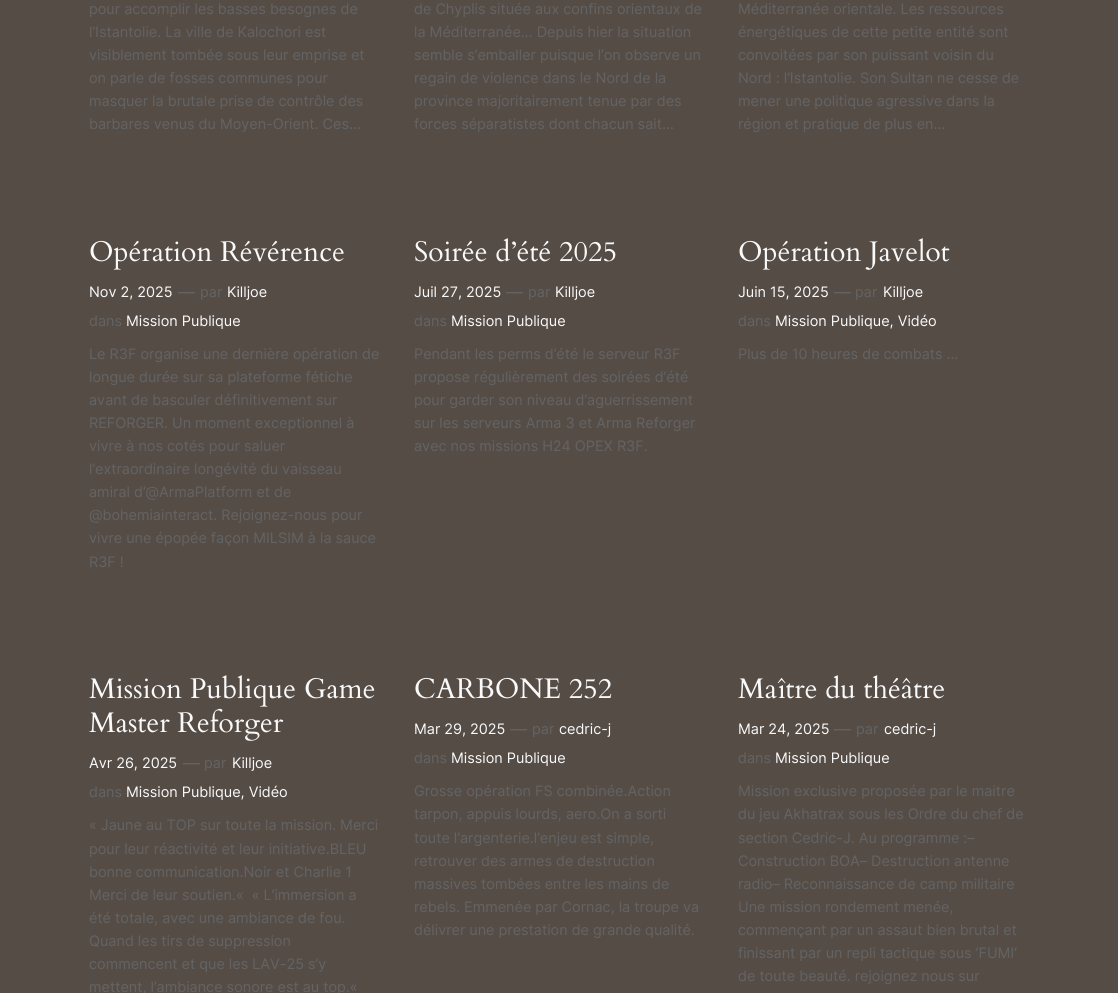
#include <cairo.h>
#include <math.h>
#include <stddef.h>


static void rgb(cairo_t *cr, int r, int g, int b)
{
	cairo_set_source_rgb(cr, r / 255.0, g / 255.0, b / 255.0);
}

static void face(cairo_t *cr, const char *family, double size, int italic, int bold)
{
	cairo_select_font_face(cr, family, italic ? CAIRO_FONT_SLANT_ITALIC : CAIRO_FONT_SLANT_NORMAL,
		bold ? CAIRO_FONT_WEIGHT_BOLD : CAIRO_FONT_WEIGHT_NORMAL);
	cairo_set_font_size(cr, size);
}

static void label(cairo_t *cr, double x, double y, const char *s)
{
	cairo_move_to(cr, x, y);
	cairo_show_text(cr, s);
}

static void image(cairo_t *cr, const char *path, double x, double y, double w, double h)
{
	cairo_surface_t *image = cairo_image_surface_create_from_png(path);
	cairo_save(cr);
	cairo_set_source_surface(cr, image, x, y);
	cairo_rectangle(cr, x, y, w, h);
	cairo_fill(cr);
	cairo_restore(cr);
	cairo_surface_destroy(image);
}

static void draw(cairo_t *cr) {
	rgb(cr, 85, 76, 70);
	cairo_paint(cr);
	face(cr, "Inter", 14.4, 0, 0);
	rgb(cr, 99, 99, 99);
	label(cr, 89, 14, "pour accomplir les basses besognes de");
	label(cr, 89, 37, "l’Istantolie. La ville de Kalochori est");
	label(cr, 89, 60, "visiblement tombée sous leur emprise et");
	label(cr, 89, 83, "on parle de fosses communes pour");
	label(cr, 89, 106, "masquer la brutale prise de contrôle des");
	label(cr, 89, 129, "barbares venus du Moyen-Orient. Ces…");
	label(cr, 414, 14, "de Chyplis située aux confins orientaux de");
	label(cr, 414, 37, "la Méditerranée… Depuis hier la situation");
	label(cr, 414, 60, "semble s’emballer puisque l’on observe un");
	label(cr, 414, 83, "regain de violence dans le Nord de la");
	label(cr, 414, 106, "province majoritairement tenue par des");
	label(cr, 414, 129, "forces séparatistes dont chacun sait…");
	label(cr, 738, 14, "Méditerranée orientale. Les ressources");
	label(cr, 738, 37, "énergétiques de cette petite entité sont");
	label(cr, 738, 60, "convoitées par son puissant voisin du");
	label(cr, 738, 83, "Nord : l’Istantolie. Son Sultan ne cesse de");
	label(cr, 738, 106, "mener une politique agressive dans la");
	label(cr, 738, 129, "région et pratique de plus en…");
	image(cr, "image0.png", 90, 240, 254, 30);
	rgb(cr, 249, 249, 249);
	label(cr, 89, 297, "Nov 2, 2025");
	face(cr, "Inter", 17, 0, 0);
	rgb(cr, 99, 99, 99);
	label(cr, 178, 298, "—");
	face(cr, "Inter", 14.4, 0, 0);
	label(cr, 200, 297, "par");
	rgb(cr, 249, 249, 249);
	label(cr, 227, 297, "Killjoe");
	rgb(cr, 99, 99, 99);
	label(cr, 89, 326, "dans");
	rgb(cr, 249, 249, 249);
	label(cr, 126, 326, "Mission Publique");
	rgb(cr, 99, 99, 99);
	label(cr, 89, 359, "Le R3F organise une dernière opération de");
	label(cr, 89, 382, "longue durée sur sa plateforme fétiche");
	label(cr, 89, 405, "avant de basculer définitivement sur");
	label(cr, 89, 428, "REFORGER. Un moment exceptionnel à");
	label(cr, 89, 451, "vivre à nos cotés pour saluer");
	label(cr, 89, 474, "l’extraordinaire longévité du vaisseau");
	label(cr, 89, 497, "amiral d’@ArmaPlatform et de");
	label(cr, 89, 520, "@bohemiainteract. Rejoignez-nous pour");
	label(cr, 89, 543, "vivre une épopée façon MILSIM à la sauce");
	label(cr, 89, 567, "R3F !");
	image(cr, "image1.png", 415, 238, 201, 24);
	rgb(cr, 249, 249, 249);
	label(cr, 414, 297, "Juil 27, 2025");
	face(cr, "Inter", 17, 0, 0);
	rgb(cr, 99, 99, 99);
	label(cr, 506, 298, "—");
	face(cr, "Inter", 14.4, 0, 0);
	label(cr, 528, 297, "par");
	rgb(cr, 249, 249, 249);
	label(cr, 555, 297, "Killjoe");
	rgb(cr, 99, 99, 99);
	label(cr, 414, 326, "dans");
	rgb(cr, 249, 249, 249);
	label(cr, 451, 326, "Mission Publique");
	rgb(cr, 99, 99, 99);
	label(cr, 414, 359, "Pendant les perms d’été le serveur R3F");
	label(cr, 414, 382, "propose régulièrement des soirées d’été");
	label(cr, 414, 405, "pour garder son niveau d’aguerrissement");
	label(cr, 414, 428, "sur les serveurs Arma 3 et Arma Reforger");
	label(cr, 414, 451, "avec nos missions H24 OPEX R3F.");
	image(cr, "image2.png", 739, 238, 211, 32);
	rgb(cr, 249, 249, 249);
	label(cr, 738, 297, "Juin 15, 2025");
	face(cr, "Inter", 17, 0, 0);
	rgb(cr, 99, 99, 99);
	label(cr, 834, 298, "—");
	face(cr, "Inter", 14.4, 0, 0);
	label(cr, 855, 297, "par");
	rgb(cr, 249, 249, 249);
	label(cr, 883, 297, "Killjoe");
	rgb(cr, 99, 99, 99);
	label(cr, 738, 326, "dans");
	rgb(cr, 249, 249, 249);
	label(cr, 775, 326, "Mission Publique, Vidéo");
	rgb(cr, 99, 99, 99);
	label(cr, 738, 359, "Plus de 10 heures de combats …");
	image(cr, "image3.png", 89, 675, 206, 32);
	image(cr, "image4.png", 305, 677, 70, 22);
	image(cr, "image5.png", 89, 708, 195, 33);
	rgb(cr, 249, 249, 249);
	label(cr, 89, 768, "Avr 26, 2025");
	face(cr, "Inter", 17, 0, 0);
	rgb(cr, 99, 99, 99);
	label(cr, 183, 769, "—");
	face(cr, "Inter", 14.4, 0, 0);
	label(cr, 204, 768, "par");
	rgb(cr, 249, 249, 249);
	label(cr, 232, 768, "Killjoe");
	rgb(cr, 99, 99, 99);
	label(cr, 89, 797, "dans");
	rgb(cr, 249, 249, 249);
	label(cr, 126, 797, "Mission Publique, Vidéo");
	rgb(cr, 99, 99, 99);
	label(cr, 89, 830, "« Jaune au TOP sur toute la mission. Merci");
	label(cr, 89, 854, "pour leur réactivité et leur initiative.BLEU");
	label(cr, 89, 877, "bonne communication.Noir et Charlie 1");
	label(cr, 89, 900, "Merci de leur soutien.«  « L’immersion a");
	label(cr, 89, 923, "été totale, avec une ambiance de fou.");
	label(cr, 89, 946, "Quand les tirs de suppression");
	label(cr, 89, 969, "commencent et que les LAV-25 s’y");
	label(cr, 89, 992, "mettent, l’ambiance sonore est au top.«");
	image(cr, "image6.png", 415, 677, 197, 22);
	rgb(cr, 249, 249, 249);
	label(cr, 414, 734, "Mar 29, 2025");
	face(cr, "Inter", 17, 0, 0);
	rgb(cr, 99, 99, 99);
	label(cr, 510, 735, "—");
	face(cr, "Inter", 14.4, 0, 0);
	label(cr, 532, 734, "par");
	rgb(cr, 249, 249, 249);
	label(cr, 559, 734, "cedric-j");
	rgb(cr, 99, 99, 99);
	label(cr, 414, 763, "dans");
	rgb(cr, 249, 249, 249);
	label(cr, 451, 763, "Mission Publique");
	rgb(cr, 99, 99, 99);
	label(cr, 414, 796, "Grosse opération FS combinée.Action");
	label(cr, 414, 819, "tarpon, appuis lourds, aero.On a sorti");
	label(cr, 414, 843, "toute l’argenterie.l’enjeu est simple,");
	label(cr, 414, 866, "retrouver des armes de destruction");
	label(cr, 414, 889, "massives tombées entre les mains de");
	label(cr, 414, 912, "rebels. Emmenée par Cornac, la troupe va");
	label(cr, 414, 935, "délivrer une prestation de grande qualité.");
	image(cr, "image7.png", 738, 675, 206, 24);
	rgb(cr, 249, 249, 249);
	label(cr, 738, 734, "Mar 24, 2025");
	face(cr, "Inter", 17, 0, 0);
	rgb(cr, 99, 99, 99);
	label(cr, 834, 735, "—");
	face(cr, "Inter", 14.4, 0, 0);
	label(cr, 856, 734, "par");
	rgb(cr, 249, 249, 249);
	label(cr, 884, 734, "cedric-j");
	rgb(cr, 99, 99, 99);
	label(cr, 738, 763, "dans");
	rgb(cr, 249, 249, 249);
	label(cr, 775, 763, "Mission Publique");
	rgb(cr, 99, 99, 99);
	label(cr, 738, 796, "Mission exclusive proposée par le maitre");
	label(cr, 738, 819, "du jeu Akhatrax sous les Ordre du chef de");
	label(cr, 738, 843, "section Cedric-J. Au programme :–");
	label(cr, 738, 866, "Construction BOA– Destruction antenne");
	label(cr, 738, 889, "radio– Reconnaissance de camp militaire");
	label(cr, 738, 912, "Une mission rondement menée,");
	label(cr, 738, 935, "commençant par un assaut bien brutal et");
	label(cr, 738, 958, "finissant par un repli tactique sous ‘FUMI’");
	label(cr, 738, 981, "de toute beauté. rejoignez nous sur");
}

int main(void) {
	cairo_surface_t *surface = cairo_image_surface_create(CAIRO_FORMAT_RGB24, 1118, 993);
	cairo_t *cr = cairo_create(surface);
	cairo_font_options_t *options = cairo_font_options_create();
	cairo_font_options_set_hint_metrics(options, CAIRO_HINT_METRICS_OFF);
	cairo_font_options_set_hint_style(options, CAIRO_HINT_STYLE_NONE);
	cairo_set_font_options(cr, options);
	cairo_set_miter_limit(cr, 4);
	draw(cr);
	cairo_surface_write_to_png(surface, "render.png");
	cairo_font_options_destroy(options);
	cairo_destroy(cr);
	cairo_surface_destroy(surface);
	return 0;
}
